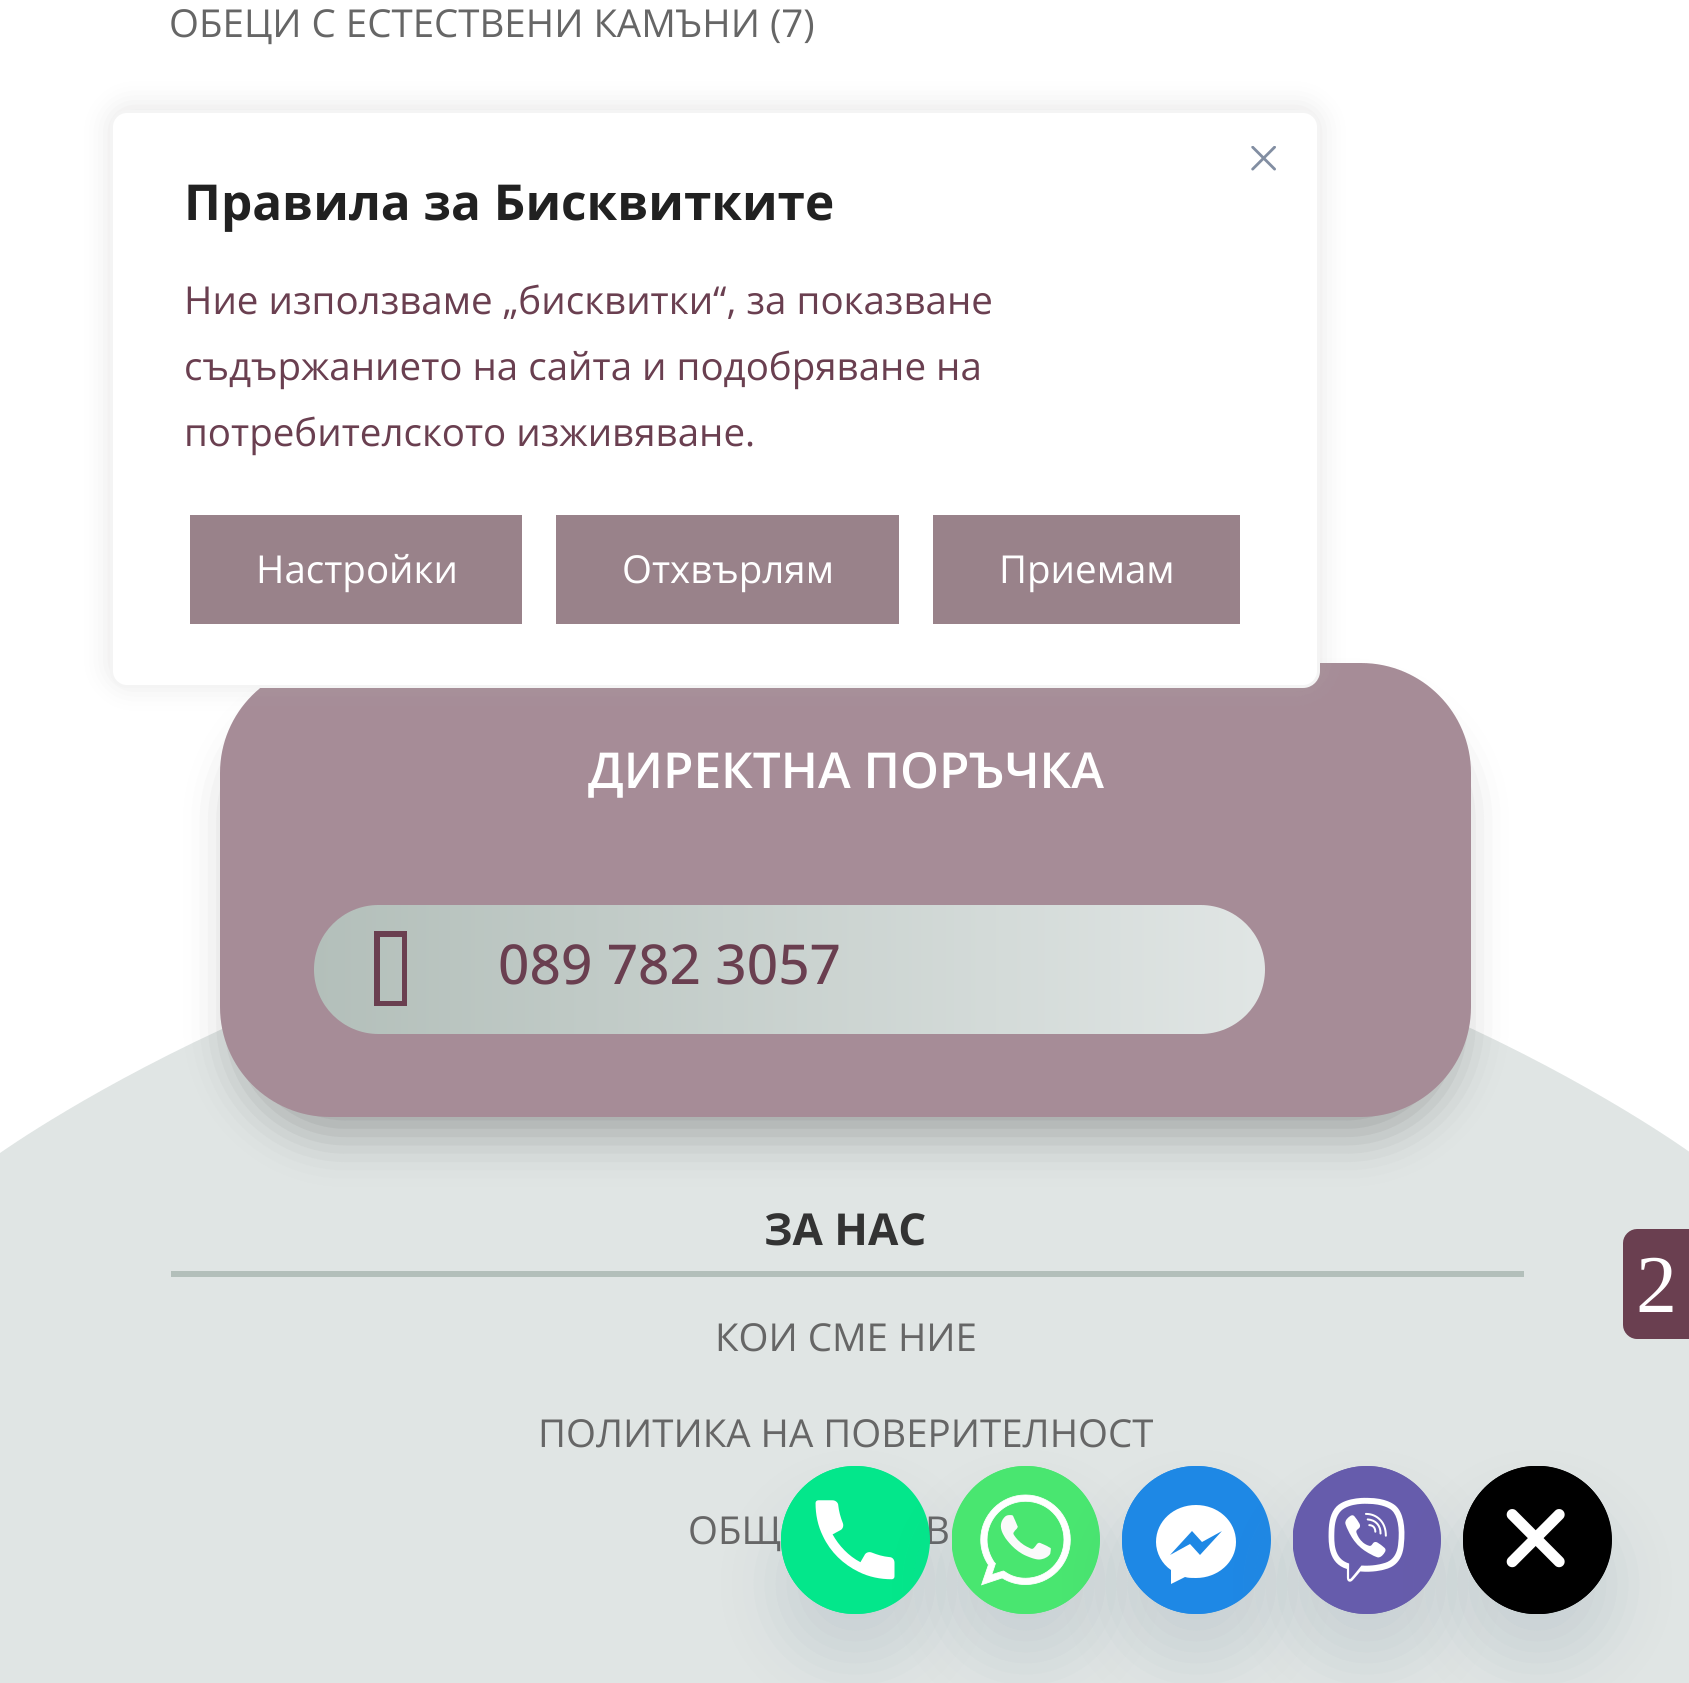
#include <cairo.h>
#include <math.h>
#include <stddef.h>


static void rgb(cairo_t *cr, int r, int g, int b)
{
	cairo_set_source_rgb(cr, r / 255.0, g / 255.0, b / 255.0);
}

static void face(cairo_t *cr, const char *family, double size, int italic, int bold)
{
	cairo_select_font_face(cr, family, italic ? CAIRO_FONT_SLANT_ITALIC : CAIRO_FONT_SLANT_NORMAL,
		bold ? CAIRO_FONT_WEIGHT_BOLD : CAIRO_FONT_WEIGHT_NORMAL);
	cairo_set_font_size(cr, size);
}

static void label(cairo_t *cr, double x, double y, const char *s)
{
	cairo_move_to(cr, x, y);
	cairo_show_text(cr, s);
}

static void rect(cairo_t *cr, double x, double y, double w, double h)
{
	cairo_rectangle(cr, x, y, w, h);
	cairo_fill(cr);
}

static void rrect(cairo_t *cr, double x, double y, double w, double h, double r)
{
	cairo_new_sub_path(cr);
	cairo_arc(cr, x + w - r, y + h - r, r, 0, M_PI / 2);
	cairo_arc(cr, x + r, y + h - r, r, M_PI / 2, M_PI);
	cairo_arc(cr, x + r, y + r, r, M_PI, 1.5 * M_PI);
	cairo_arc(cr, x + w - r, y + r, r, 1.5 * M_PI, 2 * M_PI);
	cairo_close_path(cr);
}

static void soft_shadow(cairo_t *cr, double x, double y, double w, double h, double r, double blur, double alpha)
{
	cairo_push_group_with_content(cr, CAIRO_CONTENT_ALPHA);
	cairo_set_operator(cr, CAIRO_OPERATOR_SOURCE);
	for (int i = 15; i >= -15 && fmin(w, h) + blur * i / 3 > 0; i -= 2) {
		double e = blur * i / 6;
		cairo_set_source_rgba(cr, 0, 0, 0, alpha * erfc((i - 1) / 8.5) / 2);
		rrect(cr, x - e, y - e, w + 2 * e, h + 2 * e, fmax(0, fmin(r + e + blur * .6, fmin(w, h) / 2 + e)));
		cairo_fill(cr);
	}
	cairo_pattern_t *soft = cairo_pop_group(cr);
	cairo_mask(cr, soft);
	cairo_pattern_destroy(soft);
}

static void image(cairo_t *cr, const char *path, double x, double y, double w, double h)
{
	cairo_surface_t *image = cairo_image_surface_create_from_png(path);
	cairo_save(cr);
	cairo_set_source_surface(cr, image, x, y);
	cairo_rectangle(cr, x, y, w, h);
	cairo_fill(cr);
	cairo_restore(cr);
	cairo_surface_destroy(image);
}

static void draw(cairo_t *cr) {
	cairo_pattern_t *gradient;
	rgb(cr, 255, 255, 255);
	cairo_paint(cr);
	face(cr, "Open Sans", 38.5, 0, 0);
	rgb(cr, 102, 102, 102);
	label(cr, 169, 37, "ОБЕЦИ С ЕСТЕСТВЕНИ КАМЪНИ (7)");
	rgb(cr, 224, 229, 228);
	rect(cr, 0, 1027, 1689, 656);
	cairo_save(cr);
	cairo_rectangle(cr, 0, 880, 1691, 275);
	cairo_clip(cr);
	rgb(cr, 255, 255, 255);
	cairo_new_path(cr);
	cairo_move_to(cr, 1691, 878);
	cairo_line_to(cr, 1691, 1153);
	cairo_curve_to(cr, 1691, 1153, 1313, 878, 846, 880);
	cairo_curve_to(cr, 379, 882, 0, 1153, 0, 1153);
	cairo_line_to(cr, 0, 878);
	cairo_close_path(cr);
	cairo_fill(cr);
	cairo_restore(cr);
	rgb(cr, 0, 0, 0);
	soft_shadow(cr, 237, 712, 1218, 421, 94, 25, 0.3);
	rgb(cr, 166, 140, 151);
	rrect(cr, 220, 663, 1251, 454, 110);
	cairo_fill(cr);
	face(cr, "Open Sans SemiBold", 49.5, 0, 0);
	rgb(cr, 255, 255, 255);
	label(cr, 588, 788, "ДИРЕКТНА ПОРЪЧКА");
	gradient = cairo_pattern_create_linear(314, 969, 1265, 969);
	cairo_pattern_add_color_stop_rgba(gradient, 0, 0.702, 0.749, 0.729, 1);
	cairo_pattern_add_color_stop_rgba(gradient, 0.99, 0.878, 0.898, 0.894, 1);
	cairo_set_source(cr, gradient);
	cairo_pattern_destroy(gradient);
	rrect(cr, 314, 905, 951, 129, 64.5);
	cairo_fill(cr);
	rgb(cr, 106, 63, 80);
	cairo_new_path(cr);
	cairo_move_to(cr, 380, 1001);
	cairo_line_to(cr, 380, 937);
	cairo_line_to(cr, 402, 937);
	cairo_line_to(cr, 402, 1001);
	cairo_close_path(cr);
	cairo_move_to(cr, 374, 1006);
	cairo_line_to(cr, 407, 1006);
	cairo_line_to(cr, 407, 931);
	cairo_line_to(cr, 374, 931);
	cairo_close_path(cr);
	cairo_fill(cr);
	face(cr, "Open Sans Medium", 55, 0, 0);
	label(cr, 498, 984, "089 782 3057");
	face(cr, "Open Sans", 44, 0, 1);
	rgb(cr, 51, 51, 51);
	label(cr, 764, 1245, "ЗА НАС");
	rgb(cr, 179, 191, 186);
	rect(cr, 171, 1271, 1353, 6);
	face(cr, "Open Sans", 38.5, 0, 0);
	rgb(cr, 102, 102, 102);
	label(cr, 715, 1351, "КОИ СМЕ НИЕ");
	label(cr, 538, 1447, "ПОЛИТИКА НА ПОВЕРИТЕЛНОСТ");
	label(cr, 688, 1544, "ОБЩ");
	label(cr, 925, 1544, "В");
	rgb(cr, 172, 171, 171);
	soft_shadow(cr, 110, 107, 1210, 578, 17, 14, 0.3);
	rgb(cr, 255, 255, 255);
	rrect(cr, 111.5, 111.5, 1207, 575, 15.5);
	cairo_fill_preserve(cr);
	rgb(cr, 244, 244, 244);
	cairo_set_line_width(cr, 3);
	cairo_stroke(cr);
	image(cr, "image0.png", 1251, 146, 25, 25);
	face(cr, "Open Sans", 49.5, 0, 1);
	rgb(cr, 33, 33, 33);
	label(cr, 184, 220, "Правила за Бисквитките");
	face(cr, "Open Sans", 38.5, 0, 0);
	rgb(cr, 106, 63, 80);
	label(cr, 184, 314, "Ние използваме „бисквитки“, за показване");
	label(cr, 184, 380, "съдържанието на сайта и подобряване на");
	label(cr, 184, 446, "потребителското изживяване.");
	rgb(cr, 153, 130, 138);
	rrect(cr, 187, 512, 338, 115, 3);
	cairo_fill_preserve(cr);
	rgb(cr, 255, 255, 255);
	cairo_set_line_width(cr, 6);
	cairo_stroke(cr);
	label(cr, 256, 583, "Настройки");
	rgb(cr, 153, 130, 138);
	rrect(cr, 553, 512, 349, 115, 3);
	cairo_fill_preserve(cr);
	rgb(cr, 255, 255, 255);
	cairo_stroke(cr);
	label(cr, 622, 583, "Отхвърлям");
	rgb(cr, 153, 130, 138);
	rrect(cr, 930, 512, 313, 115, 3);
	cairo_fill_preserve(cr);
	rgb(cr, 255, 255, 255);
	cairo_stroke(cr);
	label(cr, 999, 583, "Приемам");
	rgb(cr, 106, 63, 80);
	cairo_new_path(cr);
	cairo_move_to(cr, 1637, 1229);
	cairo_line_to(cr, 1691, 1229);
	cairo_line_to(cr, 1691, 1339);
	cairo_line_to(cr, 1637, 1339);
	cairo_curve_to(cr, 1629.5, 1339, 1623, 1332.5, 1623, 1325);
	cairo_line_to(cr, 1623, 1243);
	cairo_curve_to(cr, 1623, 1235.5, 1629.5, 1229, 1637, 1229);
	cairo_close_path(cr);
	cairo_fill(cr);
	face(cr, "Liberation Serif", 82, 0, 0);
	rgb(cr, 255, 255, 255);
	label(cr, 1636, 1312, "2");
	rgb(cr, 73, 104, 126);
	soft_shadow(cr, 781, 1510, 149, 148, 74, 33, 0.16);
	rgb(cr, 3, 231, 139);
	rrect(cr, 781, 1466, 149, 148, 74);
	cairo_fill(cr);
	image(cr, "image1.png", 781, 1466, 124, 148);
	rgb(cr, 73, 104, 126);
	soft_shadow(cr, 952, 1510, 148, 148, 74, 33, 0.16);
	rgb(cr, 73, 230, 112);
	cairo_arc(cr, 1026, 1540, 74, 0, 2 * M_PI);
	cairo_fill(cr);
	image(cr, "image2.png", 952, 1466, 148, 148);
	rgb(cr, 73, 104, 126);
	soft_shadow(cr, 1122, 1510, 149, 148, 74, 33, 0.16);
	rgb(cr, 30, 136, 229);
	rrect(cr, 1122, 1466, 149, 148, 74);
	cairo_fill(cr);
	cairo_arc(cr, 1196, 1540, 74, 0, 2 * M_PI);
	cairo_fill(cr);
	rgb(cr, 255, 255, 255);
	cairo_set_fill_rule(cr, CAIRO_FILL_RULE_EVEN_ODD);
	cairo_new_path(cr);
	cairo_move_to(cr, 1156, 1542);
	cairo_curve_to(cr, 1156, 1521, 1174, 1505, 1196, 1505);
	cairo_curve_to(cr, 1218, 1505, 1236, 1521, 1236, 1542);
	cairo_curve_to(cr, 1236, 1562, 1218, 1578, 1196, 1578);
	cairo_curve_to(cr, 1192, 1578, 1188, 1578, 1185, 1577);
	cairo_line_to(cr, 1171, 1584);
	cairo_line_to(cr, 1171, 1570);
	cairo_curve_to(cr, 1162, 1564, 1156, 1553, 1156, 1542);
	cairo_close_path(cr);
	cairo_move_to(cr, 1190, 1544);
	cairo_line_to(cr, 1200, 1555);
	cairo_line_to(cr, 1222, 1531);
	cairo_line_to(cr, 1202, 1542);
	cairo_line_to(cr, 1192, 1531);
	cairo_line_to(cr, 1170, 1555);
	cairo_close_path(cr);
	cairo_fill(cr);
	rgb(cr, 73, 104, 126);
	soft_shadow(cr, 1293, 1510, 148, 148, 74, 33, 0.16);
	rgb(cr, 102, 92, 172);
	cairo_arc(cr, 1367, 1540, 74, 0, 2 * M_PI);
	cairo_fill(cr);
	image(cr, "image3.png", 1293, 1466, 148, 148);
	rgb(cr, 73, 104, 126);
	soft_shadow(cr, 1463, 1510, 149, 148, 74, 33, 0.16);
	rgb(cr, 0, 0, 0);
	cairo_set_fill_rule(cr, CAIRO_FILL_RULE_WINDING);
	cairo_new_path(cr);
	cairo_move_to(cr, 1537, 1614);
	cairo_curve_to(cr, 1496, 1614, 1463, 1581, 1463, 1540);
	cairo_curve_to(cr, 1463, 1499, 1496, 1466, 1537, 1466);
	cairo_curve_to(cr, 1578, 1466, 1612, 1499, 1612, 1540);
	cairo_curve_to(cr, 1612, 1581, 1578, 1614, 1537, 1614);
	cairo_close_path(cr);
	cairo_fill(cr);
	image(cr, "image4.png", 1463, 1466, 149, 148);
}

int main(void) {
	cairo_surface_t *surface = cairo_image_surface_create(CAIRO_FORMAT_RGB24, 1689, 1683);
	cairo_t *cr = cairo_create(surface);
	cairo_font_options_t *options = cairo_font_options_create();
	cairo_font_options_set_hint_metrics(options, CAIRO_HINT_METRICS_OFF);
	cairo_font_options_set_hint_style(options, CAIRO_HINT_STYLE_NONE);
	cairo_set_font_options(cr, options);
	cairo_set_miter_limit(cr, 4);
	draw(cr);
	cairo_surface_write_to_png(surface, "render.png");
	cairo_font_options_destroy(options);
	cairo_destroy(cr);
	cairo_surface_destroy(surface);
	return 0;
}
